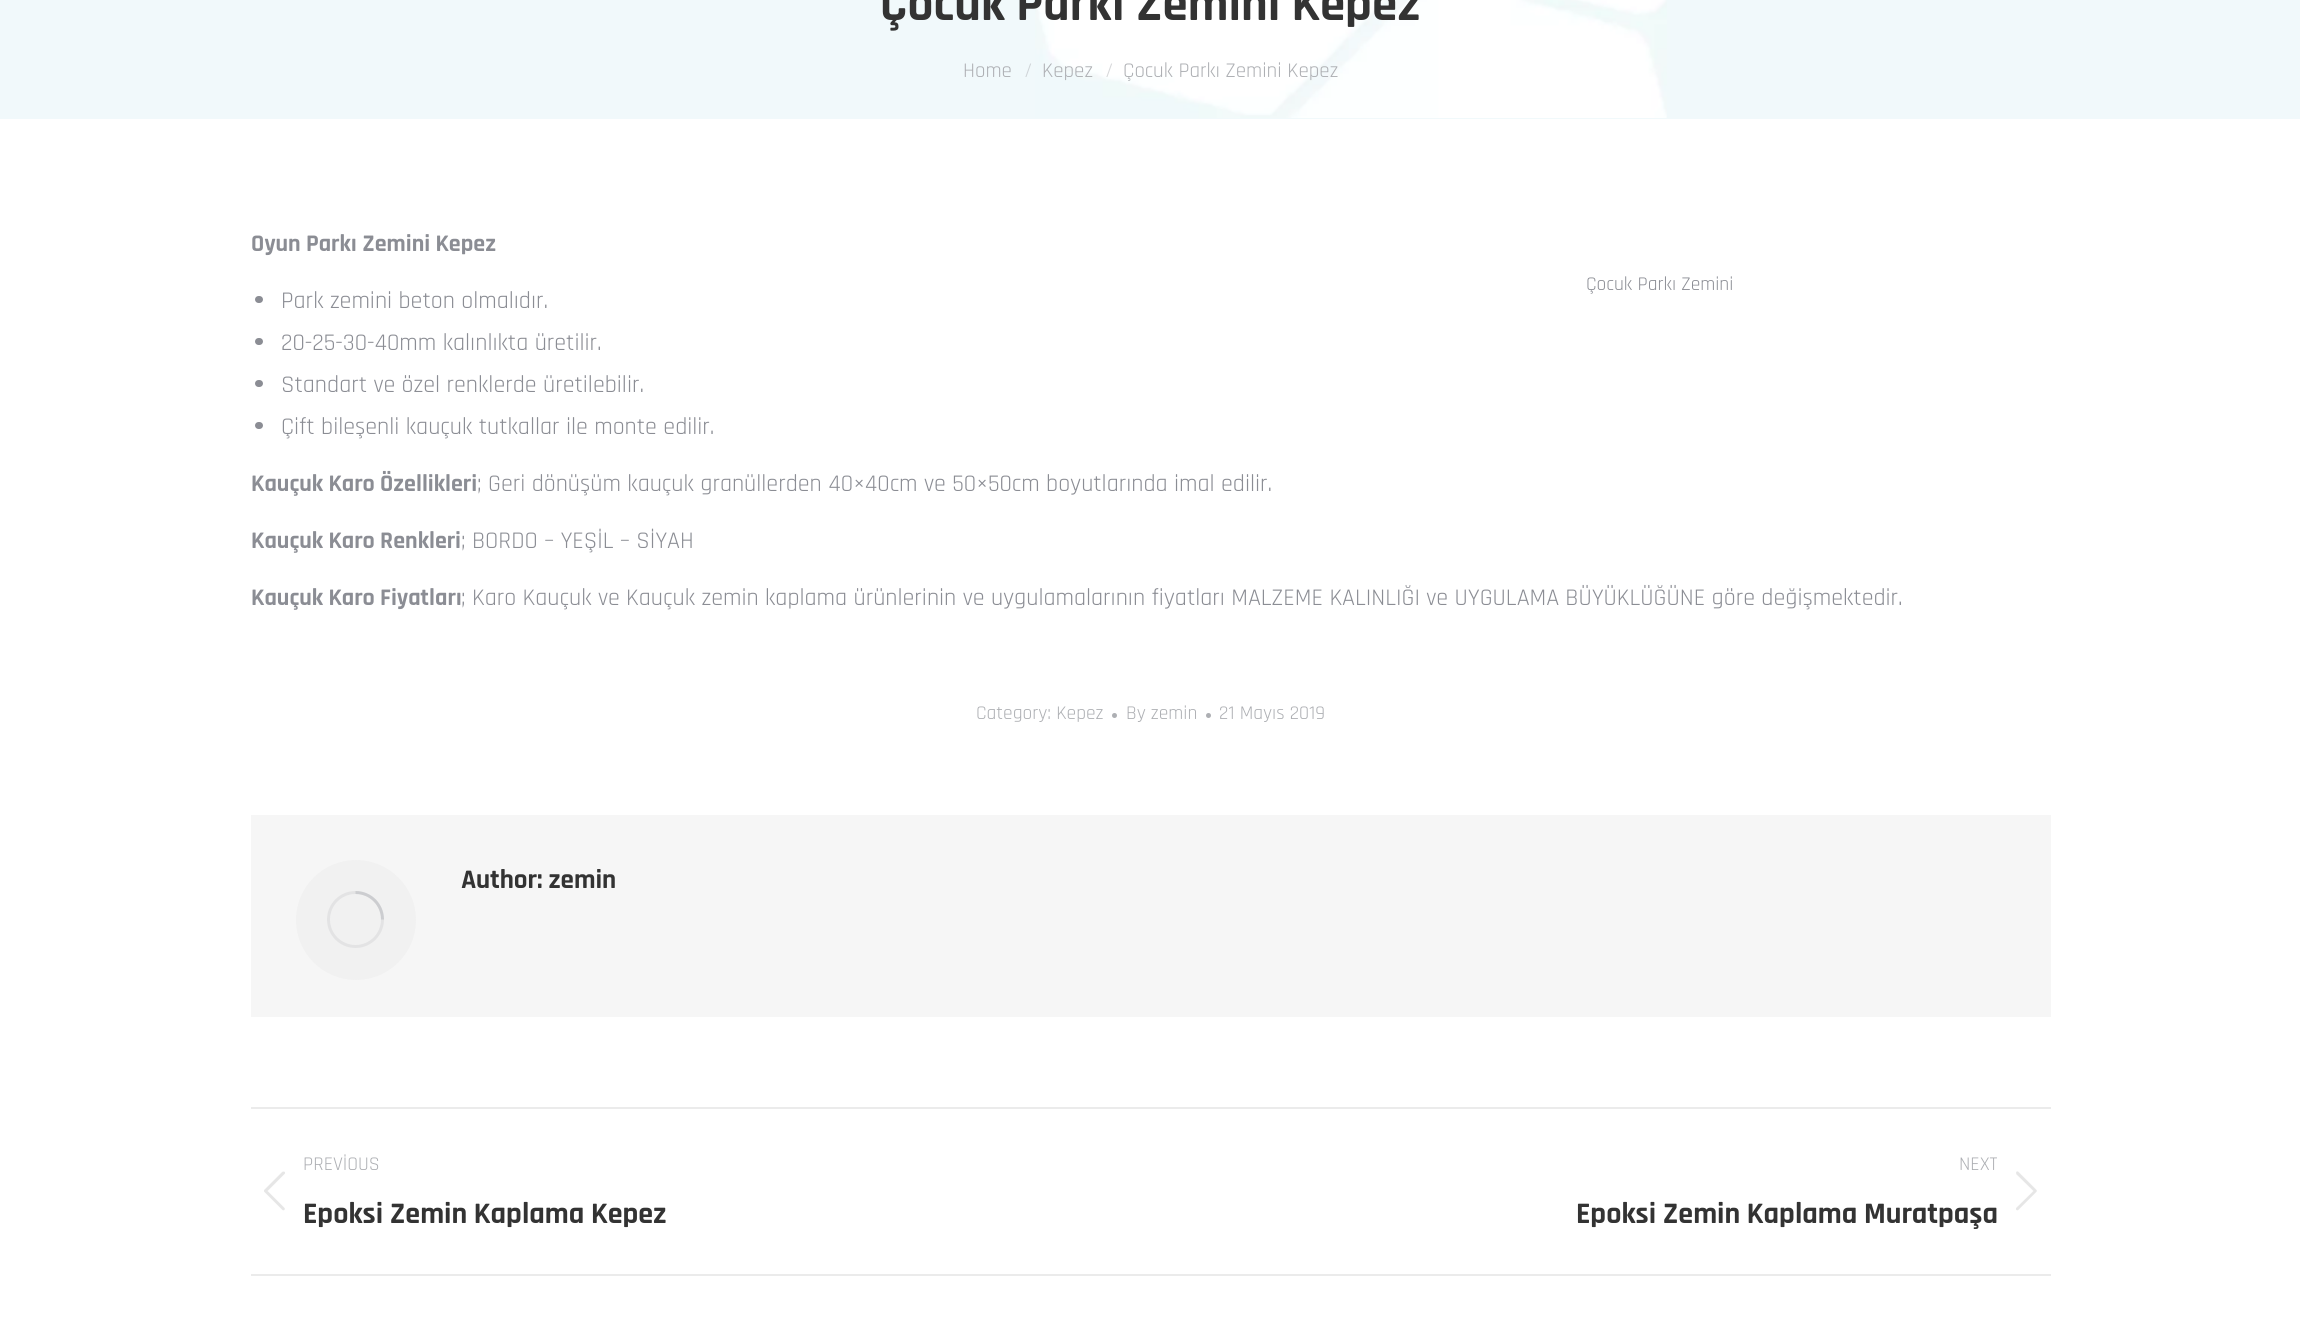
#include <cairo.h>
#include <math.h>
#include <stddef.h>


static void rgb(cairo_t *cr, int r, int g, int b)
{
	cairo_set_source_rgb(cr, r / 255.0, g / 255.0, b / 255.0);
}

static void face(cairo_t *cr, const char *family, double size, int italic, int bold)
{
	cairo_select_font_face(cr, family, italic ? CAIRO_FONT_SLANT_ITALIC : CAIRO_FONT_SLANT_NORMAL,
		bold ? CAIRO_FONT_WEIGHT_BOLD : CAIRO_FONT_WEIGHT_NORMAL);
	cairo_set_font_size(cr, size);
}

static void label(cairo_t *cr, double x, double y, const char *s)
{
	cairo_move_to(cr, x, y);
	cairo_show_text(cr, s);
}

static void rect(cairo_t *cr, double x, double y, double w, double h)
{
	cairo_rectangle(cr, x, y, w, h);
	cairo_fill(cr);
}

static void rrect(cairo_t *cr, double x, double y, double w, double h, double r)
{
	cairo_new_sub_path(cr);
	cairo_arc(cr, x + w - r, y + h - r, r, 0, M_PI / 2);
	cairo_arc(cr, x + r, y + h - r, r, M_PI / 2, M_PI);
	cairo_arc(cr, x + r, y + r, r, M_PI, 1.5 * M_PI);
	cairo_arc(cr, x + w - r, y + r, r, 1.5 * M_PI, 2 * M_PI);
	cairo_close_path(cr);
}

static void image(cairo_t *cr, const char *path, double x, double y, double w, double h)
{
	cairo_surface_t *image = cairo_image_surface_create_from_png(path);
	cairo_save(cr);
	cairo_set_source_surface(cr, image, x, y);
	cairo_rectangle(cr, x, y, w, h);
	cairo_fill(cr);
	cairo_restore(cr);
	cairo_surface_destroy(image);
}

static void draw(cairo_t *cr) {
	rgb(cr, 255, 255, 255);
	cairo_paint(cr);
	rgb(cr, 241, 249, 251);
	rect(cr, 0, 0, 2300, 119);
	image(cr, "image0.png", 1035, 0, 632, 118);
	face(cr, "Rajdhani", 51, 0, 1);
	rgb(cr, 51, 51, 51);
	label(cr, 880, 20, "Çocuk Parkı Zemini Kepez");
	face(cr, "Rajdhani", 21, 0, 0);
	rgb(cr, 173, 175, 179);
	label(cr, 963, 77, "Home");
	rgb(cr, 207, 212, 215);
	label(cr, 1024, 77, "/");
	rgb(cr, 173, 175, 179);
	label(cr, 1042, 77, "Kepez");
	rgb(cr, 214, 215, 217);
	label(cr, 1105, 77, "/");
	rgb(cr, 173, 175, 179);
	label(cr, 1123, 77, "Çocuk Parkı Zemini Kepez");
	face(cr, "Rajdhani", 24, 0, 1);
	rgb(cr, 139, 141, 148);
	label(cr, 251, 251, "Oyun Parkı Zemini Kepez");
	face(cr, "Rajdhani", 19.5, 0, 0);
	label(cr, 1586, 290, "Çocuk Parkı Zemini");
	rrect(cr, 255, 296, 8, 7, 3.5);
	cairo_fill(cr);
	face(cr, "Rajdhani", 24, 0, 0);
	label(cr, 281, 308, "Park zemini beton olmalıdır.");
	rrect(cr, 255, 338, 8, 7, 3.5);
	cairo_fill(cr);
	label(cr, 281, 350, "20-25-30-40mm kalınlıkta üretilir.");
	rrect(cr, 255, 380, 8, 7, 3.5);
	cairo_fill(cr);
	label(cr, 281, 392, "Standart ve özel renklerde üretilebilir.");
	rrect(cr, 255, 422, 8, 7, 3.5);
	cairo_fill(cr);
	label(cr, 281, 434, "Çift bileşenli kauçuk tutkallar ile monte edilir.");
	face(cr, "Rajdhani", 24, 0, 1);
	label(cr, 251, 491, "Kauçuk Karo Özellikleri");
	face(cr, "Rajdhani", 24, 0, 0);
	label(cr, 477, 491, "; Geri dönüşüm kauçuk granüllerden 40×40cm ve 50×50cm boyutlarında imal edilir.");
	face(cr, "Rajdhani", 24, 0, 1);
	label(cr, 251, 548, "Kauçuk Karo Renkleri");
	face(cr, "Rajdhani", 24, 0, 0);
	label(cr, 461, 548, "; BORDO – YEŞİL – SİYAH");
	face(cr, "Rajdhani", 24, 0, 1);
	label(cr, 251, 605, "Kauçuk Karo Fiyatları");
	face(cr, "Rajdhani", 24, 0, 0);
	label(cr, 461, 605, "; Karo Kauçuk ve Kauçuk zemin kaplama ürünlerinin ve uygulamalarının fiyatları MALZEME KALINLIĞI ve UYGULAMA BÜYÜKLÜĞÜNE göre değişmektedir.");
	face(cr, "Rajdhani", 19.5, 0, 0);
	rgb(cr, 173, 175, 179);
	label(cr, 976, 719, "Category: Kepez");
	cairo_new_path(cr);
	cairo_arc(cr, 1114.5, 715.5, 2.5, 0, 2 * M_PI);
	cairo_fill(cr);
	label(cr, 1126, 719, "By zemin");
	cairo_new_path(cr);
	cairo_arc(cr, 1208.5, 715.5, 2.5, 0, 2 * M_PI);
	cairo_fill(cr);
	label(cr, 1219, 719, "21 Mayıs 2019");
	rgb(cr, 246, 246, 246);
	rect(cr, 251, 815, 1800, 202);
	rgb(cr, 241, 241, 241);
	cairo_new_path(cr);
	cairo_arc(cr, 356, 920, 60, 0, 2 * M_PI);
	cairo_fill(cr);
	cairo_arc(cr, 355.5, 919.5, 27, 0, 2 * M_PI);
	rgb(cr, 227, 227, 228);
	cairo_set_line_width(cr, 3);
	cairo_stroke(cr);
	cairo_new_path(cr);
	cairo_move_to(cr, 382.5, 919.5);
	cairo_curve_to(cr, 382.5, 904.5, 370.5, 892.5, 355.5, 892.5);
	cairo_set_source_rgba(cr, 0.545, 0.553, 0.58, 0.25);
	cairo_stroke(cr);
	face(cr, "Rajdhani", 27, 0, 1);
	rgb(cr, 51, 51, 51);
	label(cr, 461, 888, "Author: zemin");
	rgb(cr, 235, 235, 235);
	rect(cr, 251, 1107, 1800, 2);
	rect(cr, 251, 1274, 1800, 2);
	face(cr, "Rajdhani", 19.5, 0, 0);
	rgb(cr, 173, 175, 179);
	label(cr, 303, 1170, "PREVİOUS");
	image(cr, "image1.png", 264, 1171, 21, 40);
	face(cr, "Rajdhani", 30, 0, 1);
	rgb(cr, 51, 51, 51);
	label(cr, 303, 1223, "Epoksi Zemin Kaplama Kepez");
	face(cr, "Rajdhani", 19.5, 0, 0);
	rgb(cr, 173, 175, 179);
	label(cr, 1959, 1170, "NEXT");
	image(cr, "image2.png", 2016, 1171, 21, 40);
	face(cr, "Rajdhani", 30, 0, 1);
	rgb(cr, 51, 51, 51);
	label(cr, 1576, 1223, "Epoksi Zemin Kaplama Muratpaşa");
}

int main(void) {
	cairo_surface_t *surface = cairo_image_surface_create(CAIRO_FORMAT_RGB24, 2300, 1343);
	cairo_t *cr = cairo_create(surface);
	cairo_font_options_t *options = cairo_font_options_create();
	cairo_font_options_set_hint_metrics(options, CAIRO_HINT_METRICS_OFF);
	cairo_font_options_set_hint_style(options, CAIRO_HINT_STYLE_NONE);
	cairo_set_font_options(cr, options);
	cairo_set_miter_limit(cr, 4);
	draw(cr);
	cairo_surface_write_to_png(surface, "render.png");
	cairo_font_options_destroy(options);
	cairo_destroy(cr);
	cairo_surface_destroy(surface);
	return 0;
}
